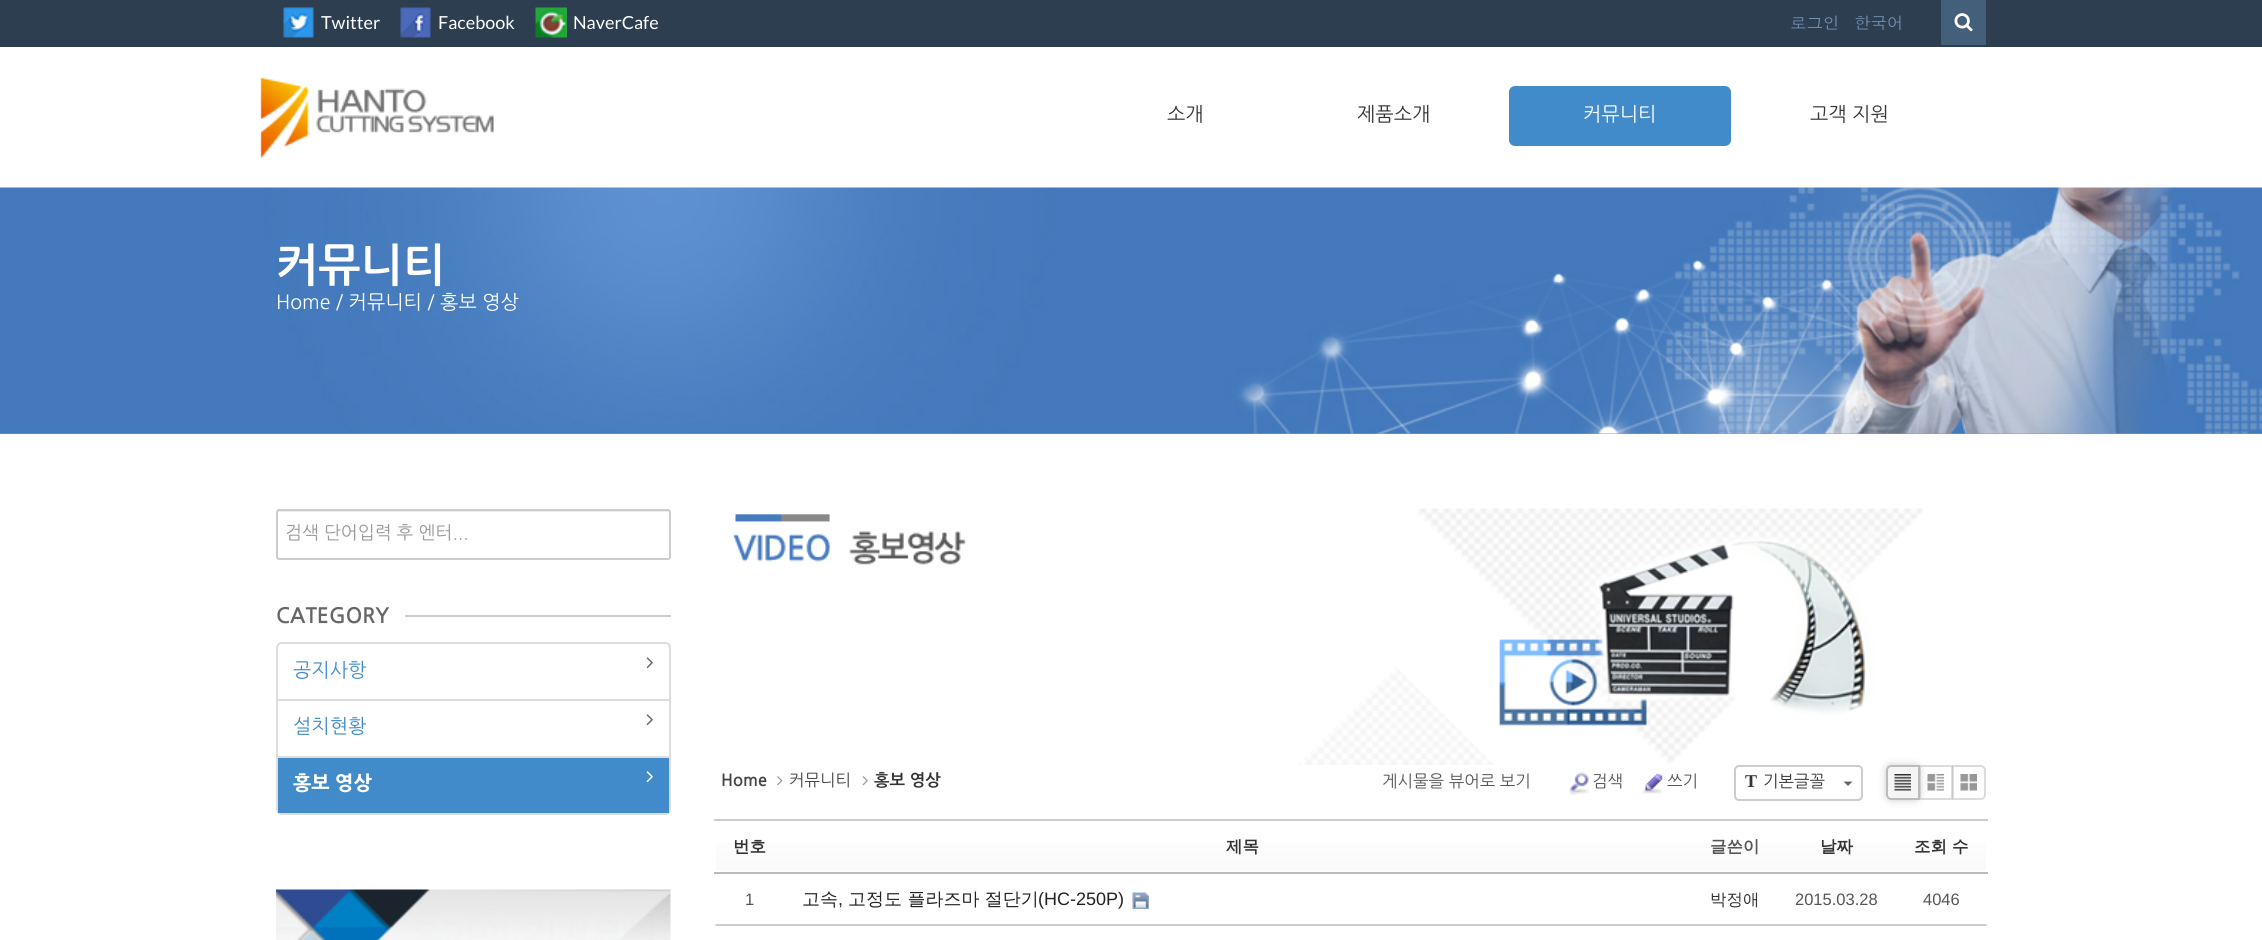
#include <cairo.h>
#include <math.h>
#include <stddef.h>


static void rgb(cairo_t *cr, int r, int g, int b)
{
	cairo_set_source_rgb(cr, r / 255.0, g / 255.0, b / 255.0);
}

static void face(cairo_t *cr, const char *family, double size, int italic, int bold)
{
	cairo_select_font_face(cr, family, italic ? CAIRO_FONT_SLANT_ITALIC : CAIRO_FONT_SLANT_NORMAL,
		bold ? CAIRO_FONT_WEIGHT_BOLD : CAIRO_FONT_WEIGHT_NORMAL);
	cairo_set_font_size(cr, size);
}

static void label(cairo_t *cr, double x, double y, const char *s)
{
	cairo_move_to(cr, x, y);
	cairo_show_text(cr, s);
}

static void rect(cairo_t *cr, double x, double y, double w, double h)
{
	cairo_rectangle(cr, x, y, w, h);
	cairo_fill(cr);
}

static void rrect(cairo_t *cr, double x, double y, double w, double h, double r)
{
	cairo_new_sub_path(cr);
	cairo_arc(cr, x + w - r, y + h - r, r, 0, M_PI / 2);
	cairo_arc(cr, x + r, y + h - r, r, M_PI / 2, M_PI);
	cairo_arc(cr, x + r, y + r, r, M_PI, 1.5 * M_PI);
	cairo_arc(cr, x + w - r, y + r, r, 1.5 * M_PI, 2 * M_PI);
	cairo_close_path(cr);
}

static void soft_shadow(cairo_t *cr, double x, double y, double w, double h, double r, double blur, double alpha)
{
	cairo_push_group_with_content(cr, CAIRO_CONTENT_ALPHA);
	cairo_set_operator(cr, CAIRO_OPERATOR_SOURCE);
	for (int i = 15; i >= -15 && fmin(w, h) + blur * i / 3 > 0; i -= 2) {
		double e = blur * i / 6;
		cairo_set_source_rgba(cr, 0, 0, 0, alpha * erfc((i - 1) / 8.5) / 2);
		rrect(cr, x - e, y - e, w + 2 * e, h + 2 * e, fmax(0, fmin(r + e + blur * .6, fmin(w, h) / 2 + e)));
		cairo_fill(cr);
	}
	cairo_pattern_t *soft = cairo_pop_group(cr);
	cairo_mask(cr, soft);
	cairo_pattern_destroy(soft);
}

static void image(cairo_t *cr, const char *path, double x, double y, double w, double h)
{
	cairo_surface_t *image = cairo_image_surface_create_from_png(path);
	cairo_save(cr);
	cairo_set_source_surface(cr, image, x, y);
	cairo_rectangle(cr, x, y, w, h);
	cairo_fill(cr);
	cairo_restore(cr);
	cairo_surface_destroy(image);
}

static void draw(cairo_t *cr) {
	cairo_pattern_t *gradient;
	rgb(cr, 255, 255, 255);
	cairo_paint(cr);
	rgb(cr, 44, 62, 80);
	rect(cr, 0, 0, 2262, 47);
	rgb(cr, 31, 50, 63);
	soft_shadow(cr, 0, 48, 2262, 141, 0, 7.5, 0.25);
	image(cr, "image0.png", 283, 7, 31, 31);
	face(cr, "Lato", 18, 0, 0);
	rgb(cr, 255, 255, 255);
	label(cr, 321, 29, "Twitter");
	image(cr, "image1.png", 400, 7, 31, 31);
	label(cr, 438, 29, "Facebook");
	image(cr, "image2.png", 535, 7, 32, 31);
	label(cr, 573, 29, "NaverCafe");
	face(cr, "Dotum", 16.5, 0, 0);
	rgb(cr, 115, 147, 179);
	label(cr, 1790, 29, "로그인");
	label(cr, 1854, 29, "한국어");
	rgb(cr, 67, 95, 122);
	rect(cr, 1941, 0, 45, 45);
	image(cr, "image3.png", 1954, 13, 19, 19);
	rgb(cr, 255, 255, 255);
	rect(cr, 0, 47, 2262, 141);
	image(cr, "image4.png", 260, 77, 234, 81);
	face(cr, "NanumGothic", 19.5, 0, 0);
	rgb(cr, 51, 51, 51);
	label(cr, 1167, 121, "소개");
	label(cr, 1357, 121, "제품소개");
	rgb(cr, 66, 139, 202);
	rrect(cr, 1509, 86, 222, 60, 6);
	cairo_fill(cr);
	rgb(cr, 255, 255, 255);
	label(cr, 1583, 121, "커뮤니티");
	rgb(cr, 51, 51, 51);
	label(cr, 1810, 121, "고객 지원");
	rgb(cr, 255, 132, 0);
	rect(cr, 0, 433, 2262, 1);
	image(cr, "image5.png", 0, 187, 2262, 247);
	face(cr, "NanumGothic", 45, 0, 1);
	rgb(cr, 255, 255, 255);
	label(cr, 276, 279, "커뮤니티");
	face(cr, "NanumGothic", 19.5, 0, 0);
	label(cr, 276, 309, "Home / 커뮤니티 / 홍보 영상");
	rgb(cr, 236, 236, 236);
	cairo_new_path(cr);
	cairo_move_to(cr, 279, 512);
	cairo_line_to(cr, 668, 512);
	cairo_line_to(cr, 669, 513);
	cairo_line_to(cr, 668, 510);
	cairo_line_to(cr, 280, 510);
	cairo_curve_to(cr, 278, 510, 278, 512, 278, 513);
	cairo_curve_to(cr, 278, 512, 278, 512, 279, 512);
	cairo_close_path(cr);
	cairo_fill(cr);
	rrect(cr, 277, 510, 393, 49, 2);
	rgb(cr, 204, 204, 204);
	cairo_stroke(cr);
	face(cr, "NanumGothic", 18, 0, 0);
	rgb(cr, 153, 153, 153);
	label(cr, 285, 539, "검색 단어입력 후 엔터...");
	face(cr, "NanumGothic", 21, 0, 1);
	rgb(cr, 102, 102, 102);
	label(cr, 276, 622, "CATEGORY");
	rgb(cr, 204, 204, 204);
	rect(cr, 405, 615, 266, 2);
	cairo_new_path(cr);
	cairo_move_to(cr, 282, 643);
	cairo_line_to(cr, 665, 643);
	cairo_curve_to(cr, 668, 643, 670, 645, 670, 648);
	cairo_line_to(cr, 670, 700);
	cairo_line_to(cr, 277, 700);
	cairo_line_to(cr, 277, 648);
	cairo_curve_to(cr, 277, 645, 279, 643, 282, 643);
	cairo_close_path(cr);
	rgb(cr, 221, 221, 221);
	cairo_stroke(cr);
	face(cr, "NanumGothic", 19.5, 0, 0);
	rgb(cr, 66, 139, 202);
	label(cr, 293, 677, "공지사항");
	image(cr, "image6.png", 646, 657, 7, 12);
	cairo_rectangle(cr, 277, 700, 393, 57);
	rgb(cr, 221, 221, 221);
	cairo_stroke(cr);
	rgb(cr, 66, 139, 202);
	label(cr, 293, 733, "설치현황");
	image(cr, "image6.png", 646, 714, 7, 12);
	cairo_new_path(cr);
	cairo_move_to(cr, 277, 757);
	cairo_line_to(cr, 670, 757);
	cairo_line_to(cr, 670, 809);
	cairo_curve_to(cr, 670, 812, 668, 814, 665, 814);
	cairo_line_to(cr, 282, 814);
	cairo_curve_to(cr, 279, 814, 277, 812, 277, 809);
	cairo_close_path(cr);
	rgb(cr, 221, 221, 221);
	cairo_stroke(cr);
	rgb(cr, 66, 139, 202);
	rect(cr, 278, 758, 391, 55);
	face(cr, "NanumGothic ExtraBold", 19.5, 0, 0);
	rgb(cr, 255, 255, 255);
	label(cr, 293, 790, "홍보 영상");
	image(cr, "image7.png", 646, 771, 7, 12);
	image(cr, "image8.png", 276, 889, 395, 51);
	image(cr, "image9.png", 733, 508, 1190, 257);
	face(cr, "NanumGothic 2", 16.5, 0, 1);
	rgb(cr, 68, 68, 68);
	label(cr, 721, 786, "Home");
	image(cr, "image10.png", 777, 776, 6, 10);
	face(cr, "NanumGothic", 16.5, 0, 0);
	label(cr, 789, 786, "커뮤니티");
	image(cr, "image11.png", 862, 776, 6, 10);
	face(cr, "NanumGothic 2", 16.5, 0, 1);
	rgb(cr, 51, 51, 51);
	label(cr, 874, 786, "홍보 영상");
	face(cr, "NanumGothic", 16.5, 0, 0);
	rgb(cr, 85, 85, 85);
	label(cr, 1382, 787, "게시물을 뷰어로 보기");
	image(cr, "image12.png", 1569, 772, 20, 23);
	label(cr, 1592, 787, "검색");
	image(cr, "image13.png", 1642, 773, 21, 21);
	label(cr, 1667, 787, "쓰기");
	rrect(cr, 1735, 766, 127, 34, 4);
	rgb(cr, 204, 204, 204);
	cairo_stroke(cr);
	face(cr, "Liberation Serif", 18, 0, 1);
	rgb(cr, 51, 51, 51);
	label(cr, 1745, 787, "T");
	face(cr, "NanumGothic", 16.5, 0, 0);
	label(cr, 1763, 787, "기본글꼴");
	rgb(cr, 102, 102, 102);
	cairo_new_path(cr);
	cairo_move_to(cr, 1843.5, 781.5);
	cairo_line_to(cr, 1852.5, 781.5);
	cairo_line_to(cr, 1848, 786);
	cairo_close_path(cr);
	cairo_fill(cr);
	rgb(cr, 245, 245, 245);
	rect(cr, 1887, 765, 31, 35);
	cairo_save(cr);
	cairo_set_fill_rule(cr, CAIRO_FILL_RULE_EVEN_ODD);
	cairo_new_path(cr);
	cairo_move_to(cr, 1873, 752);
	cairo_line_to(cr, 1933, 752);
	cairo_line_to(cr, 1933, 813);
	cairo_line_to(cr, 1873, 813);
	cairo_close_path(cr);
	cairo_move_to(cr, 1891, 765);
	cairo_line_to(cr, 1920, 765);
	cairo_line_to(cr, 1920, 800);
	cairo_line_to(cr, 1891, 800);
	cairo_curve_to(cr, 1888, 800, 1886, 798, 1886, 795);
	cairo_line_to(cr, 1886, 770);
	cairo_curve_to(cr, 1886, 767, 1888, 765, 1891, 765);
	cairo_close_path(cr);
	cairo_clip(cr);
	rgb(cr, 0, 0, 0);
	soft_shadow(cr, 1886, 765, 34, 35, 5, 4, 0.2);
	cairo_restore(cr);
	cairo_new_path(cr);
	cairo_move_to(cr, 1891, 766);
	cairo_line_to(cr, 1919, 766);
	cairo_line_to(cr, 1919, 799);
	cairo_line_to(cr, 1891, 799);
	cairo_curve_to(cr, 1889, 799, 1887, 797, 1887, 795);
	cairo_line_to(cr, 1887, 770);
	cairo_curve_to(cr, 1887, 768, 1889, 766, 1891, 766);
	cairo_close_path(cr);
	rgb(cr, 187, 187, 187);
	cairo_stroke(cr);
	image(cr, "image14.png", 1894, 774, 17, 17);
	cairo_rectangle(cr, 1920, 766, 32, 33);
	cairo_set_source_rgba(cr, 0.733, 0.733, 0.733, 0.5);
	cairo_stroke(cr);
	image(cr, "image15.png", 1927, 774, 17, 17);
	cairo_new_path(cr);
	cairo_move_to(cr, 1953, 766);
	cairo_line_to(cr, 1981, 766);
	cairo_curve_to(cr, 1983, 766, 1985, 768, 1985, 770);
	cairo_line_to(cr, 1985, 795);
	cairo_curve_to(cr, 1985, 797, 1983, 799, 1981, 799);
	cairo_line_to(cr, 1953, 799);
	cairo_close_path(cr);
	cairo_stroke(cr);
	image(cr, "image16.png", 1960, 774, 17, 17);
	gradient = cairo_pattern_create_linear(1351, 819, 1351, 873);
	cairo_pattern_add_color_stop_rgba(gradient, 0, 1, 1, 1, 1);
	cairo_pattern_add_color_stop_rgba(gradient, 1, 0.976, 0.976, 0.976, 1);
	cairo_set_source(cr, gradient);
	cairo_pattern_destroy(gradient);
	rect(cr, 716, 842, 1270, 28);
	face(cr, "WenQuanYi Zen Hei", 16.5, 0, 1);
	rgb(cr, 51, 51, 51);
	label(cr, 733, 852, "번호");
	label(cr, 1226, 852, "제목");
	rgb(cr, 85, 85, 85);
	label(cr, 1710, 852, "글쓴이");
	rgb(cr, 51, 51, 51);
	label(cr, 1820, 852, "날짜");
	rgb(cr, 204, 204, 204);
	rect(cr, 714, 819, 1274, 2);
	rgb(cr, 187, 187, 187);
	rect(cr, 714, 872, 1274, 2);
	rgb(cr, 51, 51, 51);
	label(cr, 1914, 852, "조회 수");
	rgb(cr, 238, 238, 238);
	rect(cr, 714, 924, 2, 2);
	face(cr, "Liberation Sans", 16.5, 0, 0);
	rgb(cr, 85, 85, 85);
	label(cr, 745, 905, "1");
	face(cr, "WenQuanYi Zen Hei Medium", 18, 0, 0);
	rgb(cr, 34, 34, 34);
	label(cr, 802, 905, "고속");
	face(cr, "Liberation Sans", 18, 0, 0);
	label(cr, 838, 905, ",");
	face(cr, "WenQuanYi Zen Hei Medium", 18, 0, 0);
	label(cr, 848, 905, "고정도 플라즈마 절단기");
	face(cr, "Liberation Sans", 18, 0, 0);
	label(cr, 1038, 905, "(HC-250P)");
	image(cr, "image17.png", 1132, 892, 17, 17);
	face(cr, "WenQuanYi Zen Hei Medium", 16.5, 0, 0);
	rgb(cr, 51, 51, 51);
	label(cr, 1710, 905, "박정애");
	face(cr, "Liberation Sans", 16.5, 0, 0);
	rgb(cr, 85, 85, 85);
	label(cr, 1795, 905, "2015.03.28");
	rgb(cr, 238, 238, 238);
	rect(cr, 1986, 924, 2, 2);
	rgb(cr, 85, 85, 85);
	label(cr, 1923, 905, "4046");
	rgb(cr, 204, 204, 204);
	rect(cr, 716, 924, 1270, 2);
}

int main(void) {
	cairo_surface_t *surface = cairo_image_surface_create(CAIRO_FORMAT_RGB24, 2262, 940);
	cairo_t *cr = cairo_create(surface);
	cairo_font_options_t *options = cairo_font_options_create();
	cairo_font_options_set_hint_metrics(options, CAIRO_HINT_METRICS_OFF);
	cairo_font_options_set_hint_style(options, CAIRO_HINT_STYLE_NONE);
	cairo_set_font_options(cr, options);
	cairo_set_miter_limit(cr, 4);
	draw(cr);
	cairo_surface_write_to_png(surface, "render.png");
	cairo_font_options_destroy(options);
	cairo_destroy(cr);
	cairo_surface_destroy(surface);
	return 0;
}
